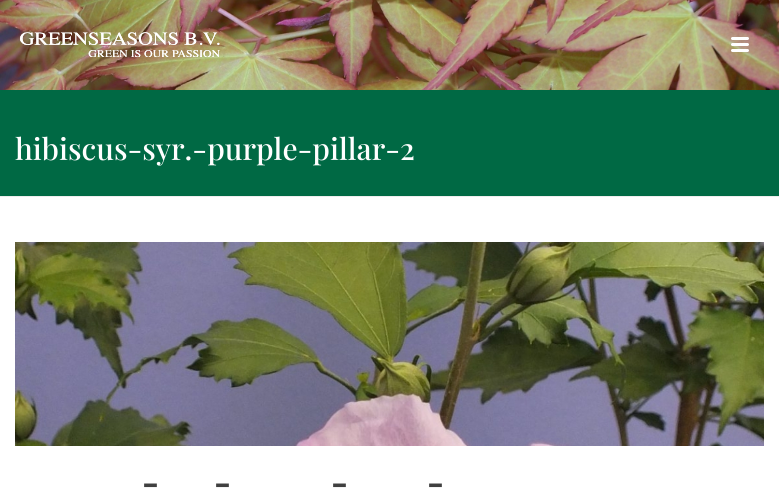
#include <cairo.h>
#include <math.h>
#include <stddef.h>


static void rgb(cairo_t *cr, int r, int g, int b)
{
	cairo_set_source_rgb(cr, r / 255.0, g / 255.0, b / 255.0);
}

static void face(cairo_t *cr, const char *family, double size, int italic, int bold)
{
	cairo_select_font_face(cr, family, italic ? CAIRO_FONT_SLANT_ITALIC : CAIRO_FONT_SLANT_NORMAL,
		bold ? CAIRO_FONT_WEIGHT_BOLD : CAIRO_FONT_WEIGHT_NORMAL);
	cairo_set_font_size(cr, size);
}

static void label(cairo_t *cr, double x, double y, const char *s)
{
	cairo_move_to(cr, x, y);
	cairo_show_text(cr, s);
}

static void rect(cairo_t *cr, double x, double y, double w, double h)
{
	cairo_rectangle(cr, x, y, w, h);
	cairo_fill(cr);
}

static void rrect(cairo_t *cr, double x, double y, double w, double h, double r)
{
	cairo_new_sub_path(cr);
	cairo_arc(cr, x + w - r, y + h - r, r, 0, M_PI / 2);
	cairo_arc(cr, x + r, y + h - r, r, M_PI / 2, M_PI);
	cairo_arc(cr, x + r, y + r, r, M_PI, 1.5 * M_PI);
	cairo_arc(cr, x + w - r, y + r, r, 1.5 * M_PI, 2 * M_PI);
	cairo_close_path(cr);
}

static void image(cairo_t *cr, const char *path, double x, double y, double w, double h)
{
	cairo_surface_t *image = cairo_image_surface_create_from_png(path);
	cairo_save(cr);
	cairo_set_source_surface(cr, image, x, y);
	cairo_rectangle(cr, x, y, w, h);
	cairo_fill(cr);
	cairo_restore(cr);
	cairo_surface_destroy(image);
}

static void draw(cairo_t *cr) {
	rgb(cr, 255, 255, 255);
	cairo_paint(cr);
	rgb(cr, 0, 105, 68);
	rect(cr, 0, 90, 779, 106);
	rgb(cr, 237, 237, 237);
	rect(cr, 0, 196, 779, 1);
	image(cr, "image0.png", 0, 0, 779, 90);
	image(cr, "image1.png", 20, 32, 200, 25);
	rgb(cr, 255, 255, 255);
	rrect(cr, 731, 37, 18, 3, 1.5);
	cairo_fill(cr);
	rrect(cr, 731, 43, 18, 3, 1.5);
	cairo_fill(cr);
	rrect(cr, 731, 49, 18, 3, 1.5);
	cairo_fill(cr);
	face(cr, "Playfair Display Medium", 30, 0, 0);
	label(cr, 15, 160, "hibiscus-syr.-purple-pillar-2");
	image(cr, "image2.png", 15, 242, 749, 204);
	face(cr, "Poppins SemiBold", 30, 0, 0);
	rgb(cr, 64, 64, 64);
	label(cr, 142, 496, "-");
	label(cr, 214, 496, "-");
	label(cr, 331, 496, "-");
	label(cr, 427, 496, "-");
}

int main(void) {
	cairo_surface_t *surface = cairo_image_surface_create(CAIRO_FORMAT_RGB24, 779, 489);
	cairo_t *cr = cairo_create(surface);
	cairo_font_options_t *options = cairo_font_options_create();
	cairo_font_options_set_hint_metrics(options, CAIRO_HINT_METRICS_OFF);
	cairo_font_options_set_hint_style(options, CAIRO_HINT_STYLE_NONE);
	cairo_set_font_options(cr, options);
	cairo_set_miter_limit(cr, 4);
	draw(cr);
	cairo_surface_write_to_png(surface, "render.png");
	cairo_font_options_destroy(options);
	cairo_destroy(cr);
	cairo_surface_destroy(surface);
	return 0;
}
